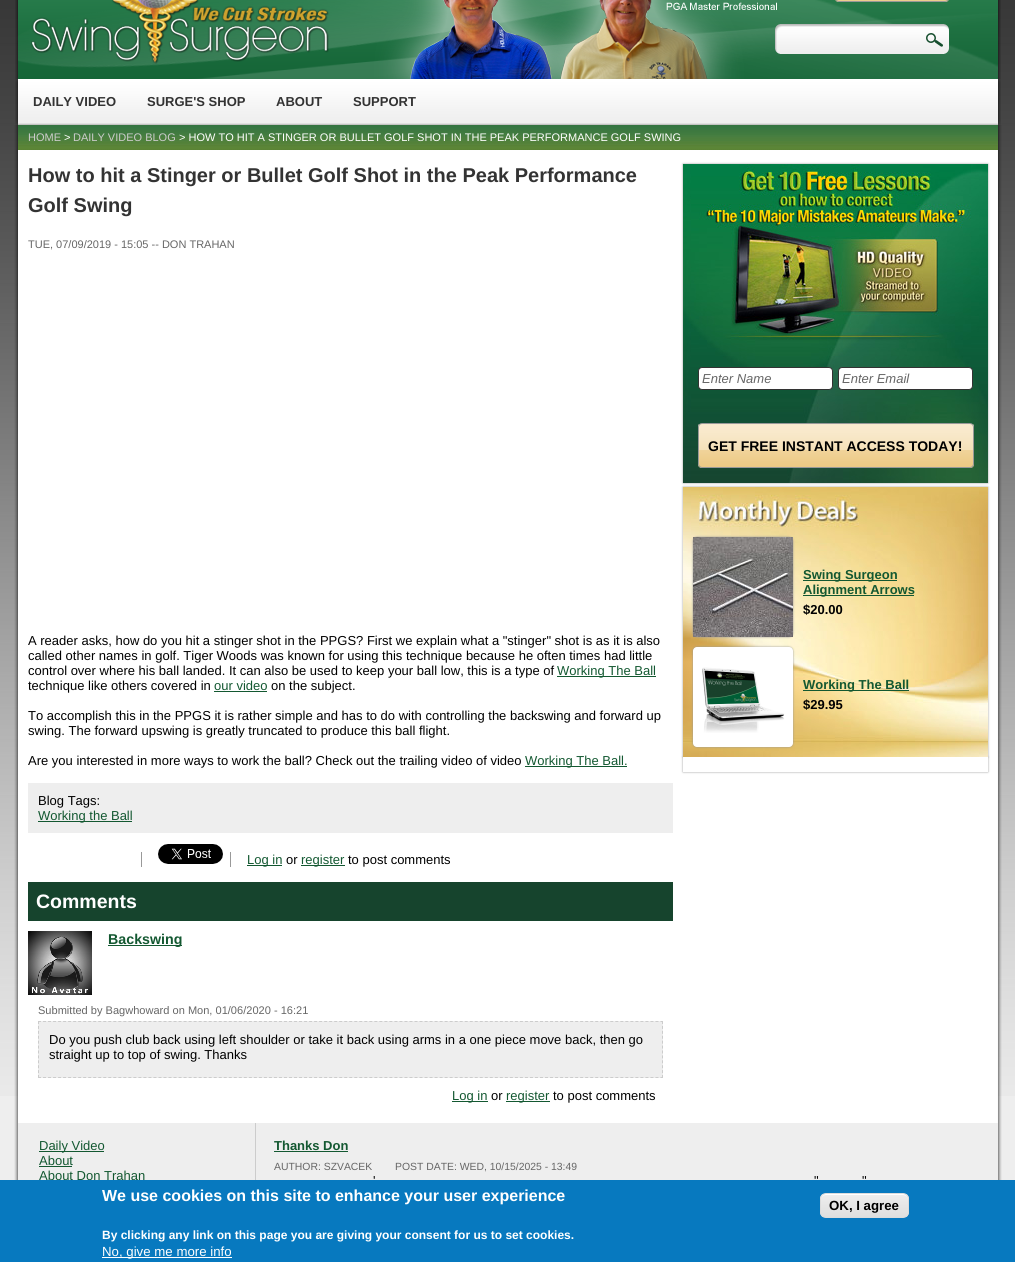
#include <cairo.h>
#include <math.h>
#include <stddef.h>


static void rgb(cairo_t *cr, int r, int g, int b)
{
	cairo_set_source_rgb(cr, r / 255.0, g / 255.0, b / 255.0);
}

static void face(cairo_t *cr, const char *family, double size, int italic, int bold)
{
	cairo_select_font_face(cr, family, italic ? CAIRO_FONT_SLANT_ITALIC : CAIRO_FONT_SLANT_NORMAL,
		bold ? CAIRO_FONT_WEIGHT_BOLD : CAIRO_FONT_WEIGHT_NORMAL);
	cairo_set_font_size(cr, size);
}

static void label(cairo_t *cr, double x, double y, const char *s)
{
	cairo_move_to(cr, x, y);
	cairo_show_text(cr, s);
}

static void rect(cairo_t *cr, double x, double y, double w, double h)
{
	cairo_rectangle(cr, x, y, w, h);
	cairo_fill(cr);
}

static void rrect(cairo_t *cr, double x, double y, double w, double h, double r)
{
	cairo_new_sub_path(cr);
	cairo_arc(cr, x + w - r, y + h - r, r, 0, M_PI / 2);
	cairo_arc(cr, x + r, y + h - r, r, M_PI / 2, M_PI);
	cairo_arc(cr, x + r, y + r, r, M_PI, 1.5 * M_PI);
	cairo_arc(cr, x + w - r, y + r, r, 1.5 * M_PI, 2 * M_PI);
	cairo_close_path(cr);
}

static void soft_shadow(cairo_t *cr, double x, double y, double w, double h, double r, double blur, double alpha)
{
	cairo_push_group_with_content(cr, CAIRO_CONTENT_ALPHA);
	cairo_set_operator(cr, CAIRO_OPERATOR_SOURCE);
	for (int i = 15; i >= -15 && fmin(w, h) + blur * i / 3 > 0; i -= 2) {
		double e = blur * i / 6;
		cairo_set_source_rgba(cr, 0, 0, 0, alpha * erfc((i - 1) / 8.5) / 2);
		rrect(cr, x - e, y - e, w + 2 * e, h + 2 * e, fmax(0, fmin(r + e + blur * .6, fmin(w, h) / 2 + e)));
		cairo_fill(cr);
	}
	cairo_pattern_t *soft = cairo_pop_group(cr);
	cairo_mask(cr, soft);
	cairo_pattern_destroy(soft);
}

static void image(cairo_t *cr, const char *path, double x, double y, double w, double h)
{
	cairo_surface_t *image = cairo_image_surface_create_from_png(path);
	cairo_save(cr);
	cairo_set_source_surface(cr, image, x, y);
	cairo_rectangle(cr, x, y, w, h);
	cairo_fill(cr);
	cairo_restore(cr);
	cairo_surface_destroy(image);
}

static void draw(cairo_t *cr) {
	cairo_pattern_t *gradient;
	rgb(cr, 238, 238, 238);
	cairo_paint(cr);
	image(cr, "image0.png", 0, 0, 1015, 1096);
	image(cr, "image1.png", 15, 0, 986, 79);
	image(cr, "image2.png", 835, 0, 114, 2);
	rrect(cr, 835.5, -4.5, 113, 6, 3.5);
	rgb(cr, 153, 153, 153);
	cairo_set_line_width(cr, 1);
	cairo_stroke(cr);
	image(cr, "image3.png", 31, 0, 298, 64);
	image(cr, "image4.png", 775, 24, 144, 30);
	image(cr, "image5.png", 919, 24, 30, 30);
	image(cr, "image6.png", 15, 79, 986, 46);
	face(cr, "Liberation Sans", 13, 0, 1);
	rgb(cr, 51, 51, 51);
	label(cr, 33, 106, "DAILY VIDEO");
	label(cr, 147, 106, "SURGE'S SHOP");
	label(cr, 276, 106, "ABOUT");
	label(cr, 353, 106, "SUPPORT");
	image(cr, "image7.png", 14, 125, 988, 998);
	image(cr, "image8.png", 18, 125, 980, 25);
	face(cr, "Liberation Sans", 11, 0, 0);
	rgb(cr, 204, 204, 204);
	label(cr, 28, 141, "HOME");
	rgb(cr, 255, 255, 255);
	label(cr, 64, 141, ">");
	rgb(cr, 204, 204, 204);
	label(cr, 73, 141, "DAILY VIDEO BLOG");
	rgb(cr, 255, 255, 255);
	label(cr, 179, 141, "> HOW TO HIT A STINGER OR BULLET GOLF SHOT IN THE PEAK PERFORMANCE GOLF SWING");
	face(cr, "Liberation Sans", 20, 0, 1);
	rgb(cr, 51, 51, 51);
	label(cr, 28, 182, "How to hit a Stinger or Bullet Golf Shot in the Peak Performance");
	label(cr, 28, 212, "Golf Swing");
	face(cr, "Liberation Sans", 11, 0, 0);
	rgb(cr, 102, 102, 102);
	label(cr, 28, 248, "TUE, 07/09/2019 - 15:05 -- DON TRAHAN");
	face(cr, "Liberation Sans", 13, 0, 0);
	rgb(cr, 0, 0, 0);
	label(cr, 28, 645, "A reader asks, how do you hit a stinger shot in the PPGS? First we explain what a \"stinger\" shot is as it is also");
	label(cr, 28, 660, "called other names in golf. Tiger Woods was known for using this technique because he often times had little");
	label(cr, 28, 675, "control over where his ball landed. It can also be used to keep your ball low, this is a type of");
	rgb(cr, 19, 88, 49);
	rect(cr, 557, 676, 99, 1);
	label(cr, 557, 675, "Working The Ball");
	rgb(cr, 0, 0, 0);
	label(cr, 28, 690, "technique like others covered in");
	rgb(cr, 19, 88, 49);
	label(cr, 214, 690, "our video");
	rect(cr, 214, 691, 53, 1);
	rgb(cr, 0, 0, 0);
	label(cr, 271, 690, "on the subject.");
	label(cr, 28, 720, "To accomplish this in the PPGS it is rather simple and has to do with controlling the backswing and forward up");
	label(cr, 28, 735, "swing. The forward upswing is greatly truncated to produce this ball flight.");
	label(cr, 28, 765, "Are you interested in more ways to work the ball? Check out the trailing video of video");
	rgb(cr, 19, 88, 49);
	rect(cr, 525, 766, 102, 1);
	label(cr, 525, 765, "Working The Ball.");
	rgb(cr, 238, 238, 238);
	rect(cr, 28, 783, 645, 50);
	rgb(cr, 0, 0, 0);
	label(cr, 38, 805, "Blog Tags:");
	rgb(cr, 19, 88, 49);
	rect(cr, 38, 821, 94, 1);
	label(cr, 38, 820, "Working the Ball");
	image(cr, "image9.png", 158, 844, 65, 20);
	rect(cr, 247, 865, 35, 1);
	label(cr, 247, 864, "Log in");
	rgb(cr, 153, 153, 153);
	rect(cr, 141, 852, 1, 15);
	rect(cr, 230, 852, 1, 15);
	rgb(cr, 0, 0, 0);
	label(cr, 286, 864, "or");
	rgb(cr, 19, 88, 49);
	rect(cr, 301, 865, 44, 1);
	label(cr, 301, 864, "register");
	rgb(cr, 0, 0, 0);
	label(cr, 348, 864, "to post comments");
	rgb(cr, 22, 68, 45);
	rect(cr, 28, 882, 645, 39);
	face(cr, "Liberation Sans", 19.5, 0, 1);
	rgb(cr, 255, 255, 255);
	label(cr, 36, 908, "Comments");
	image(cr, "image10.png", 28, 931, 64, 64);
	rgb(cr, 19, 88, 49);
	rect(cr, 108, 945, 74, 1);
	face(cr, "Liberation Sans", 14.25, 0, 1);
	label(cr, 108, 944, "Backswing");
	face(cr, "Liberation Sans", 11.05, 0, 0);
	rgb(cr, 102, 102, 102);
	label(cr, 38, 1014, "Submitted by Bagwhoward on Mon, 01/06/2020 - 16:21");
	rgb(cr, 238, 238, 238);
	rect(cr, 38, 1021, 625, 57);
	cairo_new_path(cr);
	cairo_move_to(cr, 38, 1021.5);
	cairo_line_to(cr, 663, 1021.5);
	rgb(cr, 204, 204, 204);
	cairo_set_dash(cr, (double[]){3, 2.02}, 2, 0);
	cairo_stroke(cr);
	cairo_new_path(cr);
	cairo_move_to(cr, 662.5, 1021);
	cairo_line_to(cr, 662.5, 1078);
	cairo_set_dash(cr, (double[]){3, 1.91}, 2, 0);
	cairo_stroke(cr);
	cairo_new_path(cr);
	cairo_move_to(cr, 38, 1077.5);
	cairo_line_to(cr, 663, 1077.5);
	cairo_set_dash(cr, (double[]){3, 2.02}, 2, 0);
	cairo_stroke(cr);
	cairo_new_path(cr);
	cairo_move_to(cr, 38.5, 1021);
	cairo_line_to(cr, 38.5, 1078);
	cairo_set_dash(cr, (double[]){3, 1.91}, 2, 0);
	cairo_stroke(cr);
	face(cr, "Liberation Sans", 13, 0, 0);
	rgb(cr, 0, 0, 0);
	label(cr, 49, 1044, "Do you push club back using left shoulder or take it back using arms in a one piece move back, then go");
	label(cr, 49, 1059, "straight up to top of swing. Thanks");
	rgb(cr, 19, 88, 49);
	rect(cr, 452, 1101, 36, 1);
	label(cr, 452, 1100, "Log in");
	rgb(cr, 0, 0, 0);
	label(cr, 491, 1100, "or");
	rgb(cr, 19, 88, 49);
	rect(cr, 506, 1101, 44, 1);
	label(cr, 506, 1100, "register");
	rgb(cr, 0, 0, 0);
	label(cr, 553, 1100, "to post comments");
	rgb(cr, 153, 153, 153);
	soft_shadow(cr, 683, 164, 305, 319, 0, 1, 1);
	image(cr, "image11.png", 683, 164, 305, 319);
	rgb(cr, 255, 255, 255);
	rrect(cr, 698.5, 367.5, 134, 22, 3.5);
	cairo_fill_preserve(cr);
	rgb(cr, 51, 51, 51);
	cairo_set_dash(cr, NULL, 0, 0);
	cairo_stroke(cr);
	face(cr, "Liberation Sans", 13, 1, 0);
	rgb(cr, 102, 102, 102);
	label(cr, 702, 383, "Enter Name");
	rgb(cr, 255, 255, 255);
	rrect(cr, 838.5, 367.5, 134, 22, 3.5);
	cairo_fill_preserve(cr);
	rgb(cr, 51, 51, 51);
	cairo_stroke(cr);
	rgb(cr, 102, 102, 102);
	label(cr, 842, 383, "Enter Email");
	image(cr, "image12.png", 698, 424, 276, 44);
	rrect(cr, 698.5, 423.5, 275, 44, 3.5);
	rgb(cr, 153, 153, 153);
	cairo_stroke(cr);
	face(cr, "Liberation Sans", 14, 0, 1);
	rgb(cr, 0, 0, 0);
	label(cr, 708, 451, "GET FREE INSTANT ACCESS TODAY!");
	rgb(cr, 153, 153, 153);
	soft_shadow(cr, 683, 487, 305, 270, 0, 1, 1);
	soft_shadow(cr, 683, 757, 305, 15, 0, 1, 1);
	image(cr, "image13.png", 683, 487, 305, 270);
	soft_shadow(cr, 693, 537, 100, 100, 4, 1, 1);
	image(cr, "image14.png", 693, 537, 100, 100);
	rgb(cr, 19, 88, 49);
	rect(cr, 803, 580, 94, 1);
	face(cr, "Liberation Sans", 13, 0, 1);
	label(cr, 803, 579, "Swing Surgeon");
	rect(cr, 803, 595, 111, 1);
	label(cr, 803, 594, "Alignment Arrows");
	rgb(cr, 0, 0, 0);
	label(cr, 803, 614, "$20.00");
	rgb(cr, 153, 153, 153);
	soft_shadow(cr, 693, 647, 100, 100, 4, 1, 1);
	rgb(cr, 255, 255, 255);
	rrect(cr, 693, 647, 100, 100, 4);
	cairo_fill(cr);
	image(cr, "image15.png", 702, 667, 83, 66);
	rgb(cr, 19, 88, 49);
	rect(cr, 803, 690, 106, 1);
	label(cr, 803, 689, "Working The Ball");
	rgb(cr, 0, 0, 0);
	label(cr, 803, 709, "$29.95");
	rgb(cr, 255, 255, 255);
	rect(cr, 683, 757, 305, 15);
	image(cr, "image16.png", 14, 1123, 988, 57);
	rgb(cr, 19, 88, 49);
	rect(cr, 39, 1151, 65, 1);
	face(cr, "Liberation Sans", 13, 0, 0);
	label(cr, 39, 1150, "Daily Video");
	label(cr, 39, 1165, "About");
	rect(cr, 39, 1166, 33, 1);
	label(cr, 39, 1180, "About Don Trahan");
	face(cr, "Liberation Sans", 13, 0, 1);
	label(cr, 274, 1150, "Thanks Don");
	rect(cr, 274, 1151, 74, 1);
	face(cr, "Liberation Sans", 10.4, 0, 0);
	rgb(cr, 102, 102, 102);
	label(cr, 274, 1170, "AUTHOR: SZVACEK");
	label(cr, 395, 1170, "POST DATE: WED, 10/15/2025 - 13:49");
	face(cr, "Liberation Sans", 13, 0, 0);
	rgb(cr, 0, 0, 0);
	label(cr, 373, 1185, "'");
	label(cr, 814, 1185, "\"");
	label(cr, 862, 1185, "\"");
	rgb(cr, 7, 121, 191);
	rect(cr, 0, 1180, 1015, 82);
	face(cr, "Liberation Sans", 16, 0, 1);
	rgb(cr, 255, 255, 255);
	label(cr, 102, 1201, "We use cookies on this site to enhance your user experience");
	face(cr, "Liberation Sans", 12, 0, 1);
	label(cr, 102, 1239, "By clicking any link on this page you are giving your consent for us to set cookies.");
	rect(cr, 102, 1257, 130, 1);
	face(cr, "Liberation Sans", 13.25, 0, 0);
	label(cr, 102, 1256, "No, give me more info");
	cairo_save(cr);
	rrect(cr, 820, 1193, 89, 25, 6);
	cairo_clip(cr);
	gradient = cairo_pattern_create_linear(865, 1194, 865, 1217);
	cairo_pattern_add_color_stop_rgba(gradient, 0.05, 0.929, 0.929, 0.929, 1);
	cairo_pattern_add_color_stop_rgba(gradient, 1, 0.875, 0.875, 0.875, 1);
	cairo_set_source(cr, gradient);
	cairo_pattern_destroy(gradient);
	rect(cr, 820, 1194, 89, 23);
	cairo_restore(cr);
	cairo_new_path(cr);
	cairo_move_to(cr, 826, 1195);
	cairo_line_to(cr, 903, 1195);
	cairo_curve_to(cr, 906, 1195, 908, 1197, 908, 1200);
	cairo_curve_to(cr, 908, 1191, 896, 1194, 890, 1194);
	cairo_line_to(cr, 839, 1194);
	cairo_curve_to(cr, 833, 1194, 821, 1191, 821, 1200);
	cairo_curve_to(cr, 821, 1197, 823, 1195, 826, 1195);
	cairo_close_path(cr);
	cairo_fill(cr);
	rrect(cr, 820.5, 1193.5, 88, 24, 5.5);
	rgb(cr, 220, 220, 220);
	cairo_stroke(cr);
	face(cr, "Liberation Sans", 13.25, 0, 1);
	rgb(cr, 0, 0, 0);
	label(cr, 829, 1210, "OK, I agree");
}

int main(void) {
	cairo_surface_t *surface = cairo_image_surface_create(CAIRO_FORMAT_RGB24, 1015, 1262);
	cairo_t *cr = cairo_create(surface);
	cairo_font_options_t *options = cairo_font_options_create();
	cairo_font_options_set_hint_metrics(options, CAIRO_HINT_METRICS_OFF);
	cairo_font_options_set_hint_style(options, CAIRO_HINT_STYLE_NONE);
	cairo_set_font_options(cr, options);
	cairo_set_miter_limit(cr, 4);
	draw(cr);
	cairo_surface_write_to_png(surface, "render.png");
	cairo_font_options_destroy(options);
	cairo_destroy(cr);
	cairo_surface_destroy(surface);
	return 0;
}
